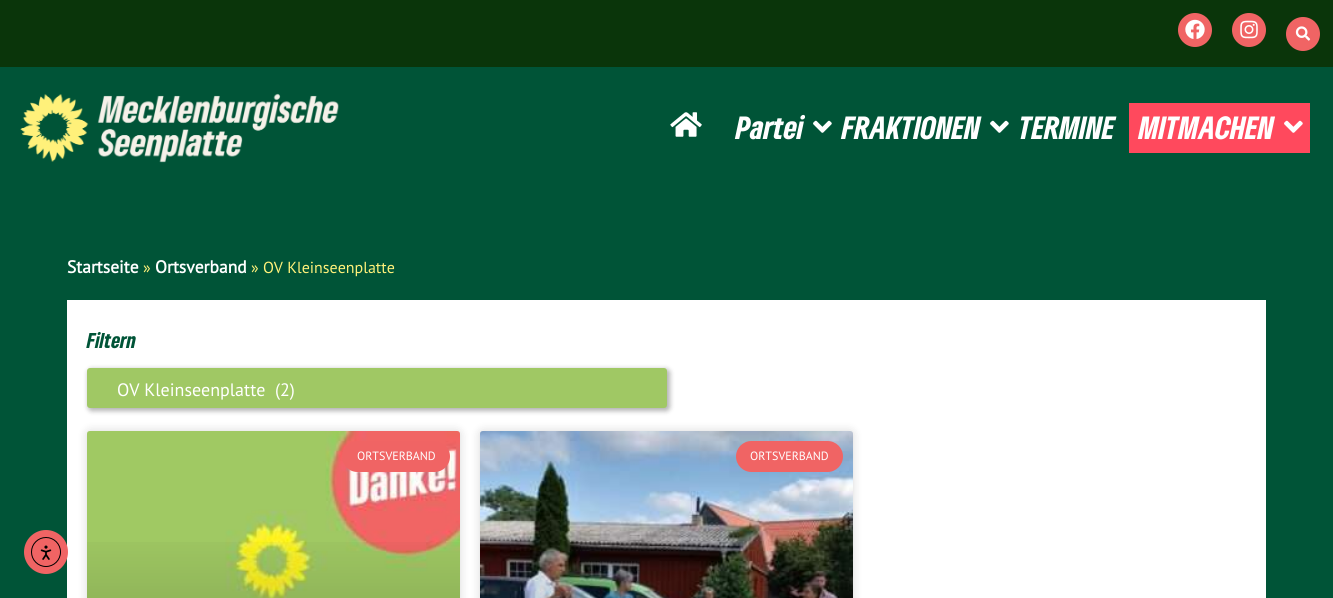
#include <cairo.h>
#include <math.h>
#include <stddef.h>


static void rgb(cairo_t *cr, int r, int g, int b)
{
	cairo_set_source_rgb(cr, r / 255.0, g / 255.0, b / 255.0);
}

static void face(cairo_t *cr, const char *family, double size, int italic, int bold)
{
	cairo_select_font_face(cr, family, italic ? CAIRO_FONT_SLANT_ITALIC : CAIRO_FONT_SLANT_NORMAL,
		bold ? CAIRO_FONT_WEIGHT_BOLD : CAIRO_FONT_WEIGHT_NORMAL);
	cairo_set_font_size(cr, size);
}

static void label(cairo_t *cr, double x, double y, const char *s)
{
	cairo_move_to(cr, x, y);
	cairo_show_text(cr, s);
}

static void rect(cairo_t *cr, double x, double y, double w, double h)
{
	cairo_rectangle(cr, x, y, w, h);
	cairo_fill(cr);
}

static void rrect(cairo_t *cr, double x, double y, double w, double h, double r)
{
	cairo_new_sub_path(cr);
	cairo_arc(cr, x + w - r, y + h - r, r, 0, M_PI / 2);
	cairo_arc(cr, x + r, y + h - r, r, M_PI / 2, M_PI);
	cairo_arc(cr, x + r, y + r, r, M_PI, 1.5 * M_PI);
	cairo_arc(cr, x + w - r, y + r, r, 1.5 * M_PI, 2 * M_PI);
	cairo_close_path(cr);
}

static void soft_shadow(cairo_t *cr, double x, double y, double w, double h, double r, double blur, double alpha)
{
	cairo_push_group_with_content(cr, CAIRO_CONTENT_ALPHA);
	cairo_set_operator(cr, CAIRO_OPERATOR_SOURCE);
	for (int i = 15; i >= -15 && fmin(w, h) + blur * i / 3 > 0; i -= 2) {
		double e = blur * i / 6;
		cairo_set_source_rgba(cr, 0, 0, 0, alpha * erfc((i - 1) / 8.5) / 2);
		rrect(cr, x - e, y - e, w + 2 * e, h + 2 * e, fmax(0, fmin(r + e + blur * .6, fmin(w, h) / 2 + e)));
		cairo_fill(cr);
	}
	cairo_pattern_t *soft = cairo_pop_group(cr);
	cairo_mask(cr, soft);
	cairo_pattern_destroy(soft);
}

static void image(cairo_t *cr, const char *path, double x, double y, double w, double h)
{
	cairo_surface_t *image = cairo_image_surface_create_from_png(path);
	cairo_save(cr);
	cairo_set_source_surface(cr, image, x, y);
	cairo_rectangle(cr, x, y, w, h);
	cairo_fill(cr);
	cairo_restore(cr);
	cairo_surface_destroy(image);
}

static void draw(cairo_t *cr) {
	cairo_pattern_t *gradient;
	rgb(cr, 0, 84, 55);
	cairo_paint(cr);
	rgb(cr, 10, 53, 10);
	rect(cr, 0, 0, 1333, 67);
	rgb(cr, 240, 100, 100);
	cairo_arc(cr, 1195, 30, 17, 0, 2 * M_PI);
	cairo_fill(cr);
	image(cr, "image0.png", 1185, 19, 20, 20);
	cairo_arc(cr, 1249, 30, 17, 0, 2 * M_PI);
	cairo_fill(cr);
	image(cr, "image1.png", 1240, 20, 18, 19);
	cairo_arc(cr, 1303, 34, 17, 0, 2 * M_PI);
	cairo_fill(cr);
	image(cr, "image2.png", 1295, 26, 16, 15);
	image(cr, "image3.png", 20, 93, 319, 70);
	image(cr, "image4.png", 670, 112, 32, 25);
	face(cr, "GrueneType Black", 30, 0, 0);
	rgb(cr, 255, 255, 255);
	label(cr, 736, 139, "Partei");
	image(cr, "image5.png", 813, 120, 19, 13);
	label(cr, 842, 139, "FRAKTIONEN");
	image(cr, "image5.png", 990, 120, 19, 13);
	label(cr, 1019, 139, "TERMINE");
	rgb(cr, 255, 73, 93);
	rect(cr, 1129, 103, 181, 50);
	rgb(cr, 255, 255, 255);
	label(cr, 1139, 139, "MITMACHEN");
	image(cr, "image6.png", 1284, 120, 19, 13);
	face(cr, "PT Sans", 17.5, 0, 1);
	label(cr, 67, 273, "Startseite");
	face(cr, "PT Sans", 16, 0, 0);
	rgb(cr, 255, 241, 122);
	label(cr, 143, 273, "»");
	face(cr, "PT Sans", 17.5, 0, 1);
	rgb(cr, 255, 255, 255);
	label(cr, 155, 273, "Ortsverband");
	face(cr, "PT Sans", 16, 0, 0);
	rgb(cr, 255, 241, 122);
	label(cr, 251, 273, "» OV Kleinseenplatte");
	rgb(cr, 255, 255, 255);
	rect(cr, 67, 300, 1199, 298);
	face(cr, "GrueneType Black", 20, 0, 0);
	rgb(cr, 0, 84, 55);
	label(cr, 87, 348, "Filtern");
	rgb(cr, 0, 0, 0);
	soft_shadow(cr, 88, 369, 582, 42, 4, 2.5, 0.3);
	rgb(cr, 160, 200, 100);
	rrect(cr, 87, 368, 580, 40, 3);
	cairo_fill(cr);
	face(cr, "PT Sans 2", 18, 0, 0);
	rgb(cr, 255, 255, 255);
	label(cr, 117, 396, "OV Kleinseenplatte  (2)");
	rgb(cr, 0, 0, 0);
	soft_shadow(cr, 87, 431, 373, 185, 3, 5, 0.15);
	image(cr, "image7.png", 87, 431, 373, 167);
	gradient = cairo_pattern_create_linear(274, 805, 274, 431);
	cairo_pattern_add_color_stop_rgba(gradient, 0, 0, 0, 0, 0.35);
	cairo_pattern_add_color_stop_rgba(gradient, 0.75, 0, 0, 0, 0);
	cairo_set_source(cr, gradient);
	cairo_pattern_destroy(gradient);
	rect(cr, 87, 542, 373, 56);
	rgb(cr, 240, 100, 100);
	rrect(cr, 342, 441, 108, 31, 15.5);
	cairo_fill(cr);
	face(cr, "PT Sans", 12, 0, 0);
	rgb(cr, 255, 255, 255);
	label(cr, 357, 460, "ORTSVERBAND");
	rgb(cr, 0, 0, 0);
	soft_shadow(cr, 480, 431, 373, 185, 3, 5, 0.15);
	image(cr, "image8.png", 480, 431, 373, 167);
	gradient = cairo_pattern_create_linear(667, 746, 667, 431);
	cairo_pattern_add_color_stop_rgba(gradient, 0, 0, 0, 0, 0.35);
	cairo_pattern_add_color_stop_rgba(gradient, 0.75, 0, 0, 0, 0);
	cairo_set_source(cr, gradient);
	cairo_pattern_destroy(gradient);
	rect(cr, 480, 524, 373, 74);
	rgb(cr, 240, 100, 100);
	rrect(cr, 736, 441, 107, 31, 15.5);
	cairo_fill(cr);
	rgb(cr, 255, 255, 255);
	label(cr, 750, 460, "ORTSVERBAND");
	rgb(cr, 240, 100, 100);
	cairo_new_path(cr);
	cairo_arc(cr, 46, 552, 22, 0, 2 * M_PI);
	cairo_fill(cr);
	cairo_arc(cr, 46, 552, 14.5, 0, 2 * M_PI);
	rgb(cr, 0, 0, 0);
	cairo_set_line_width(cr, 1);
	cairo_stroke(cr);
	image(cr, "image9.png", 40, 545, 12, 15);
}

int main(void) {
	cairo_surface_t *surface = cairo_image_surface_create(CAIRO_FORMAT_RGB24, 1333, 598);
	cairo_t *cr = cairo_create(surface);
	cairo_font_options_t *options = cairo_font_options_create();
	cairo_font_options_set_hint_metrics(options, CAIRO_HINT_METRICS_OFF);
	cairo_font_options_set_hint_style(options, CAIRO_HINT_STYLE_NONE);
	cairo_set_font_options(cr, options);
	cairo_set_miter_limit(cr, 4);
	draw(cr);
	cairo_surface_write_to_png(surface, "render.png");
	cairo_font_options_destroy(options);
	cairo_destroy(cr);
	cairo_surface_destroy(surface);
	return 0;
}
